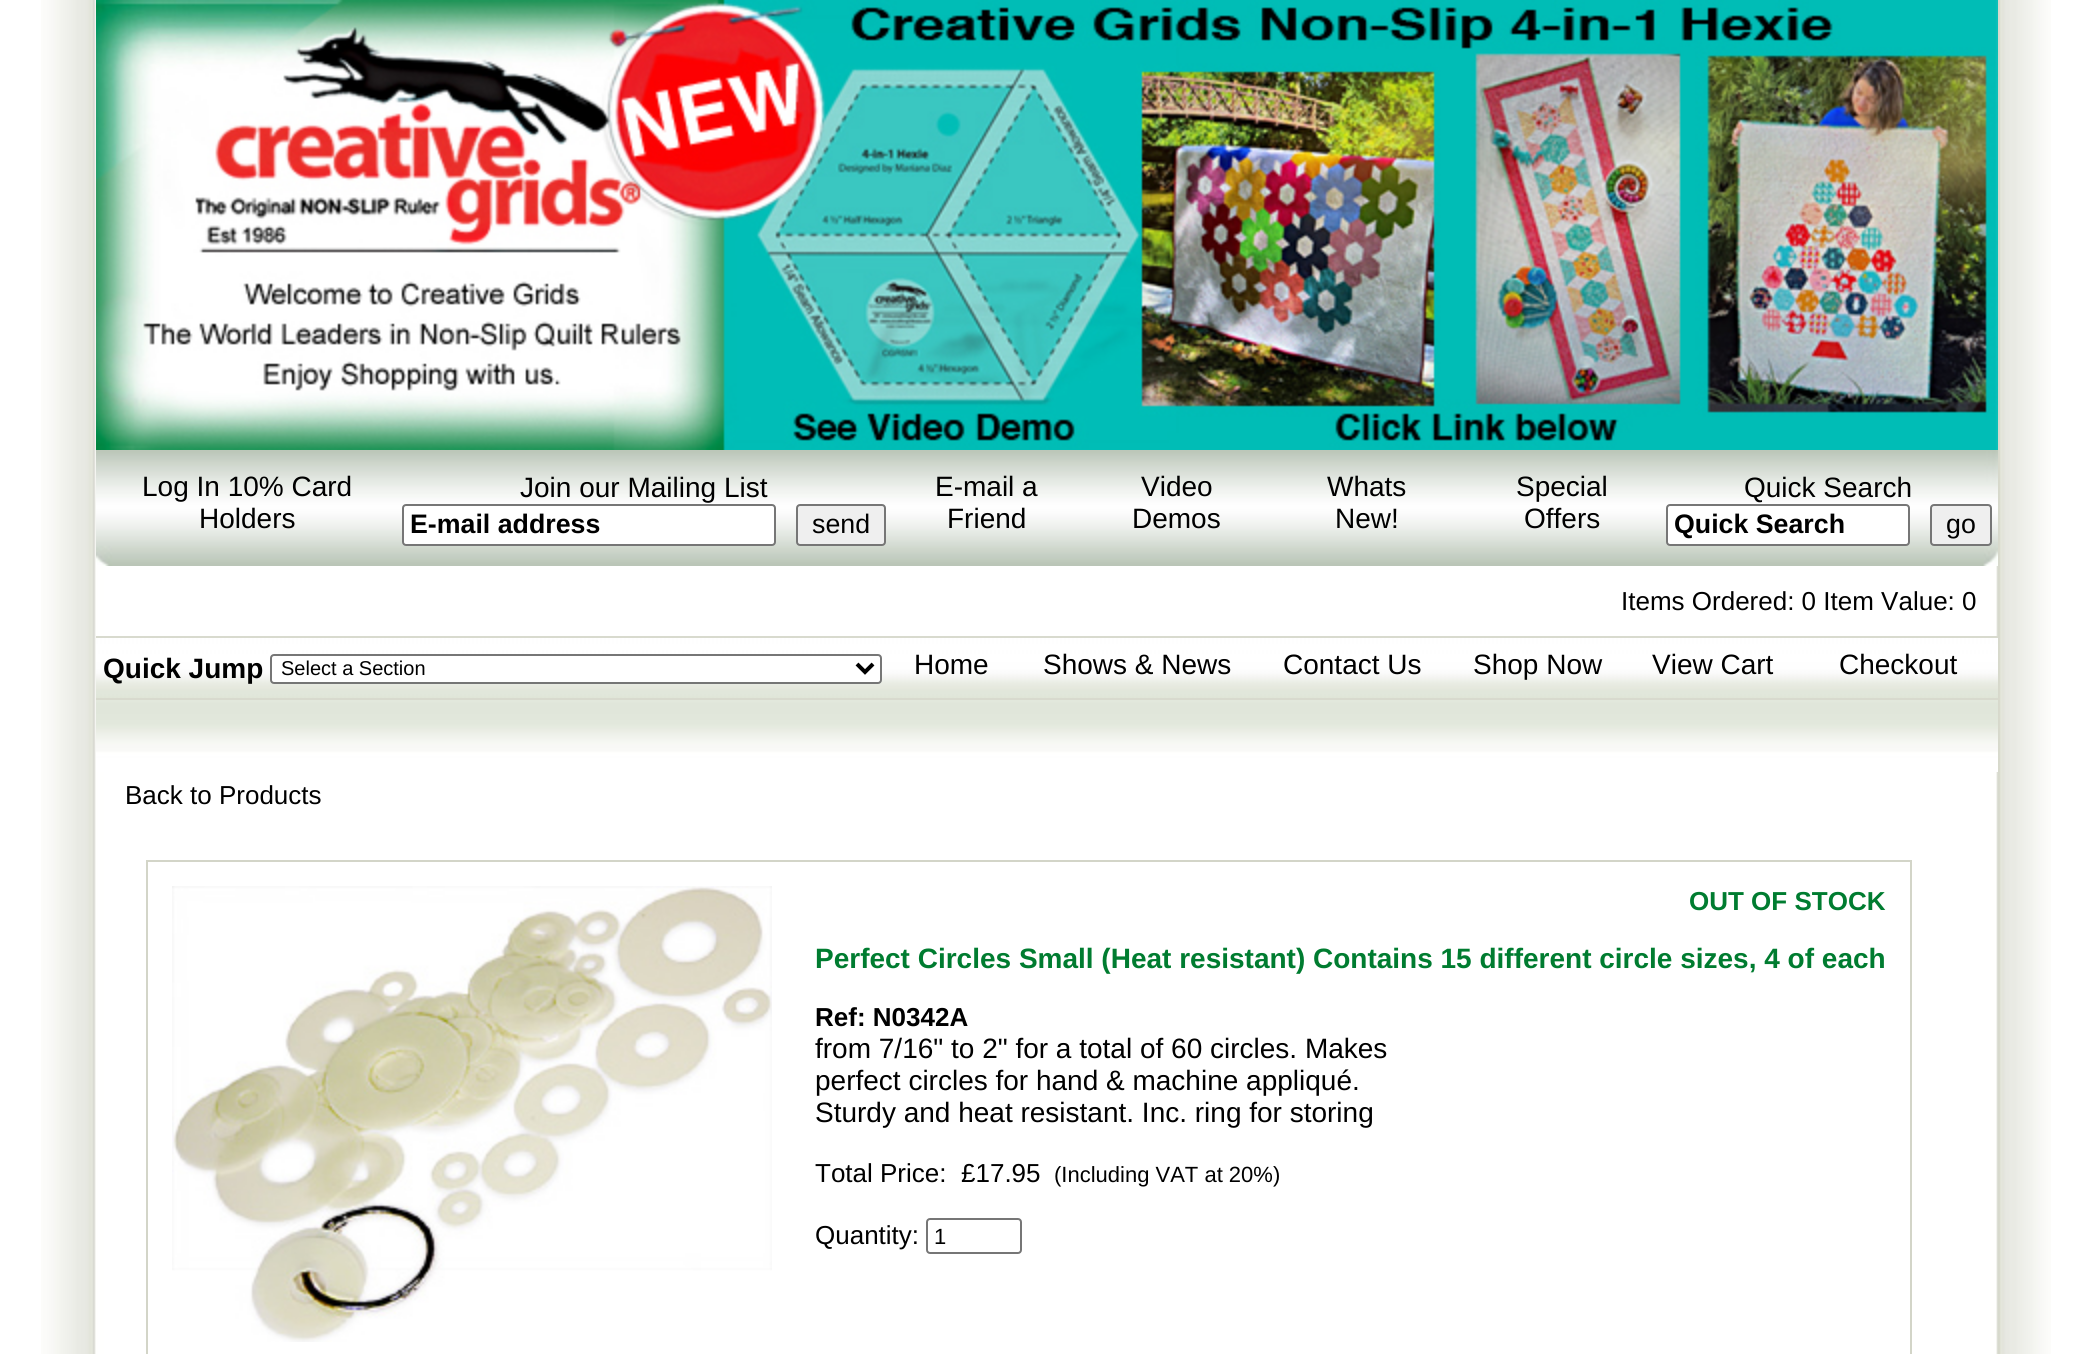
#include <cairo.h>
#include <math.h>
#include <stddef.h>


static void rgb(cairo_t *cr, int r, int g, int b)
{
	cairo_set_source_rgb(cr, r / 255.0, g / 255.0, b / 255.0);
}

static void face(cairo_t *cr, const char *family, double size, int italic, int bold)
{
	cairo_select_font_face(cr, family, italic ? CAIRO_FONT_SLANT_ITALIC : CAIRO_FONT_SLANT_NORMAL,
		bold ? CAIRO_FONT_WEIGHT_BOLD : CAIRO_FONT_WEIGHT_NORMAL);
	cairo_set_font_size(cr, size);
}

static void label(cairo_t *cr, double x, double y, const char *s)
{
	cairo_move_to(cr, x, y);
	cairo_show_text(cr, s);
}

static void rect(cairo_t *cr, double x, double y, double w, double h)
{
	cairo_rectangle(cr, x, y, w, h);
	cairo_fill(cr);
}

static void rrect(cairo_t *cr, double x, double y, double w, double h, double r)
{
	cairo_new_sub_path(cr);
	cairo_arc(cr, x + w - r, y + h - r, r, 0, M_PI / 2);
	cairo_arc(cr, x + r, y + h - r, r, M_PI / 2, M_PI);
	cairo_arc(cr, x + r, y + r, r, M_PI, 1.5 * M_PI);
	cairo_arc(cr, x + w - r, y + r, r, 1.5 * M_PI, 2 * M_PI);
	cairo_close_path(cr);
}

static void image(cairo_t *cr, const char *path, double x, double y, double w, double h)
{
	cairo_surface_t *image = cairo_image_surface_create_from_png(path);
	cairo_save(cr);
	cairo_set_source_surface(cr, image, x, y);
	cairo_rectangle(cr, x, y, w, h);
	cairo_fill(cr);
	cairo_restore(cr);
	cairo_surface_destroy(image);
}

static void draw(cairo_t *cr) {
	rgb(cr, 255, 255, 255);
	cairo_paint(cr);
	image(cr, "image0.png", 41, 0, 1958, 1354);
	image(cr, "image1.png", 96, 0, 1902, 450);
	image(cr, "image2.png", 1999, 0, 52, 1354);
	image(cr, "image3.png", 96, 450, 1902, 116);
	face(cr, "Liberation Sans", 28, 0, 0);
	rgb(cr, 0, 0, 0);
	label(cr, 142, 496, "Log In 10% Card");
	label(cr, 199, 528, "Holders");
	label(cr, 520, 497, "Join our Mailing List");
	rgb(cr, 255, 255, 255);
	rrect(cr, 403, 505, 372, 40, 3);
	cairo_fill_preserve(cr);
	rgb(cr, 118, 118, 118);
	cairo_stroke(cr);
	face(cr, "Liberation Sans", 26.75, 0, 1);
	rgb(cr, 0, 0, 0);
	label(cr, 410, 533, "E-mail address");
	rgb(cr, 239, 239, 239);
	rrect(cr, 797, 505, 88, 40, 3);
	cairo_fill_preserve(cr);
	rgb(cr, 118, 118, 118);
	cairo_stroke(cr);
	face(cr, "Liberation Sans", 26.75, 0, 0);
	rgb(cr, 0, 0, 0);
	label(cr, 812, 533, "send");
	face(cr, "Liberation Sans", 28, 0, 0);
	label(cr, 935, 496, "E-mail a");
	label(cr, 947, 528, "Friend");
	label(cr, 1141, 496, "Video");
	label(cr, 1132, 528, "Demos");
	label(cr, 1327, 496, "Whats");
	label(cr, 1335, 528, "New!");
	label(cr, 1516, 496, "Special");
	label(cr, 1524, 528, "Offers");
	label(cr, 1744, 497, "Quick Search");
	rgb(cr, 255, 255, 255);
	rrect(cr, 1667, 505, 242, 40, 3);
	cairo_fill_preserve(cr);
	rgb(cr, 118, 118, 118);
	cairo_stroke(cr);
	face(cr, "Liberation Sans", 26.75, 0, 1);
	rgb(cr, 0, 0, 0);
	label(cr, 1674, 533, "Quick Search");
	rgb(cr, 239, 239, 239);
	rrect(cr, 1931, 505, 60, 40, 3);
	cairo_fill_preserve(cr);
	rgb(cr, 118, 118, 118);
	cairo_stroke(cr);
	face(cr, "Liberation Sans", 26.75, 0, 0);
	rgb(cr, 0, 0, 0);
	label(cr, 1946, 533, "go");
	face(cr, "Liberation Sans", 26, 0, 0);
	label(cr, 1621, 610, "Items Ordered: 0 Item Value: 0");
	image(cr, "image4.png", 96, 638, 1902, 60);
	rgb(cr, 216, 218, 206);
	rect(cr, 96, 636, 1902, 2);
	rect(cr, 96, 698, 1902, 2);
	face(cr, "Liberation Sans", 28, 0, 1);
	rgb(cr, 0, 0, 0);
	label(cr, 103, 678, "Quick Jump");
	rgb(cr, 255, 255, 255);
	rrect(cr, 271, 655, 610, 28, 3);
	cairo_fill_preserve(cr);
	rgb(cr, 118, 118, 118);
	cairo_stroke(cr);
	cairo_new_path(cr);
	cairo_move_to(cr, 857, 664);
	cairo_line_to(cr, 865, 672);
	cairo_line_to(cr, 873, 664);
	rgb(cr, 0, 0, 0);
	cairo_set_line_width(cr, 4);
	cairo_stroke(cr);
	face(cr, "Liberation Sans", 20, 0, 0);
	label(cr, 281, 675, "Select a Section");
	face(cr, "Liberation Sans", 28, 0, 0);
	label(cr, 914, 674, "Home");
	label(cr, 1043, 674, "Shows & News");
	label(cr, 1283, 674, "Contact Us");
	label(cr, 1473, 674, "Shop Now");
	label(cr, 1652, 674, "View Cart");
	label(cr, 1839, 674, "Checkout");
	image(cr, "image5.png", 96, 700, 1902, 72);
	face(cr, "Liberation Sans", 26, 0, 0);
	label(cr, 125, 804, "Back to Products");
	cairo_rectangle(cr, 147, 861, 1764, 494);
	rgb(cr, 211, 213, 200);
	cairo_set_line_width(cr, 2);
	cairo_stroke(cr);
	image(cr, "image6.png", 172, 886, 600, 456);
	face(cr, "Liberation Sans", 26, 0, 1);
	rgb(cr, 0, 124, 48);
	label(cr, 1689, 910, "OUT OF STOCK");
	face(cr, "Liberation Sans", 28, 0, 1);
	label(cr, 815, 968, "Perfect Circles Small (Heat resistant) Contains 15 different circle sizes, 4 of each");
	face(cr, "Liberation Sans", 26, 0, 1);
	rgb(cr, 0, 0, 0);
	label(cr, 815, 1026, "Ref: N0342A");
	face(cr, "Liberation Sans", 28, 0, 0);
	label(cr, 815, 1058, "from 7/16\" to 2\" for a total of 60 circles. Makes");
	label(cr, 815, 1090, "perfect circles for hand & machine appliqué.");
	label(cr, 815, 1122, "Sturdy and heat resistant. Inc. ring for storing");
	face(cr, "Liberation Sans", 26, 0, 0);
	label(cr, 815, 1182, "Total Price:");
	label(cr, 961, 1182, "£17.95");
	face(cr, "Liberation Sans", 22, 0, 0);
	label(cr, 1054, 1182, "(Including VAT at 20%)");
	face(cr, "Liberation Sans", 26, 0, 0);
	label(cr, 815, 1244, "Quantity:");
	rrect(cr, 927, 1219, 94, 34, 3);
	rgb(cr, 118, 118, 118);
	cairo_stroke(cr);
	face(cr, "Liberation Sans", 22, 0, 0);
	rgb(cr, 0, 0, 0);
	label(cr, 934, 1244, "1");
}

int main(void) {
	cairo_surface_t *surface = cairo_image_surface_create(CAIRO_FORMAT_RGB24, 2091, 1354);
	cairo_t *cr = cairo_create(surface);
	cairo_font_options_t *options = cairo_font_options_create();
	cairo_font_options_set_hint_metrics(options, CAIRO_HINT_METRICS_OFF);
	cairo_font_options_set_hint_style(options, CAIRO_HINT_STYLE_NONE);
	cairo_set_font_options(cr, options);
	cairo_set_miter_limit(cr, 4);
	draw(cr);
	cairo_surface_write_to_png(surface, "render.png");
	cairo_font_options_destroy(options);
	cairo_destroy(cr);
	cairo_surface_destroy(surface);
	return 0;
}
